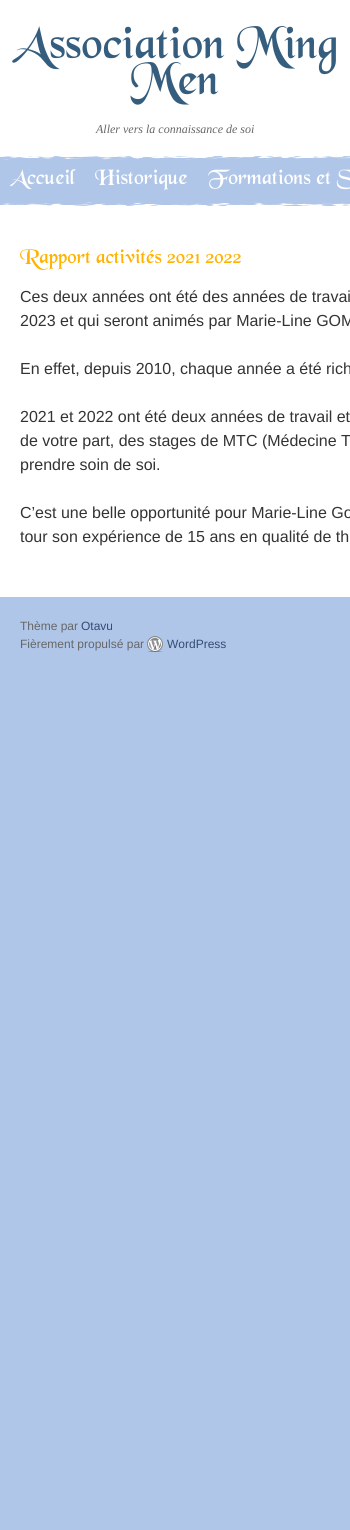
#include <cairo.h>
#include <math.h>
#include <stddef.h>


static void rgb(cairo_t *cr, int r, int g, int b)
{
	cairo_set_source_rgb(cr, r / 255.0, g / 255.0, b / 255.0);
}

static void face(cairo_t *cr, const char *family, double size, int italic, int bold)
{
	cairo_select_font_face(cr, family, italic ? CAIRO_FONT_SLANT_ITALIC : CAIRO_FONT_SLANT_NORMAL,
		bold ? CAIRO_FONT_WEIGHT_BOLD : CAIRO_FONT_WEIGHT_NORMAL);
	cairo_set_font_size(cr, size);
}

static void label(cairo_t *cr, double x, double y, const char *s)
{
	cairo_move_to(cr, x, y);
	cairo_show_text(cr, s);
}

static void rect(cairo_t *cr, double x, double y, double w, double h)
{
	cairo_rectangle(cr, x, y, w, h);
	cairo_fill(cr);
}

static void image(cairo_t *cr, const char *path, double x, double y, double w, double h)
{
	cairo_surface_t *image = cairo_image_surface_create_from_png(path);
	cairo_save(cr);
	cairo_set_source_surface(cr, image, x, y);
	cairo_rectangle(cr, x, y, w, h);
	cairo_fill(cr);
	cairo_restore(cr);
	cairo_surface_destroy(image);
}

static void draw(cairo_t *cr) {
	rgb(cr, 175, 198, 233);
	cairo_paint(cr);
	rgb(cr, 255, 255, 255);
	rect(cr, 0, 0, 350, 597);
	face(cr, "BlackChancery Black", 48, 0, 0);
	rgb(cr, 53, 93, 126);
	label(cr, 12, 58, "Association Ming");
	label(cr, 131, 94, "Men");
	face(cr, "Liberation Serif", 12, 1, 0);
	rgb(cr, 102, 102, 102);
	label(cr, 96, 133, "Aller vers la connaissance de soi");
	image(cr, "image0.png", 0, 156, 350, 50);
	face(cr, "BlackChancery Black", 22, 0, 0);
	rgb(cr, 255, 255, 255);
	label(cr, 10, 184, "Accueil");
	label(cr, 95, 184, "Historique");
	label(cr, 208, 184, "Formations et S");
	face(cr, "BlackChancery Black", 21, 0, 0);
	rgb(cr, 255, 178, 0);
	label(cr, 20, 263, "Rapport activités 2021 2022");
	face(cr, "Liberation Sans", 16, 0, 0);
	rgb(cr, 51, 51, 51);
	label(cr, 20, 302, "Ces deux années ont été des années de travai");
	label(cr, 20, 326, "2023 et qui seront animés par Marie-Line GOM");
	label(cr, 20, 374, "En effet, depuis 2010, chaque année a été rich");
	label(cr, 20, 422, "2021 et 2022 ont été deux années de travail et");
	label(cr, 20, 446, "de votre part, des stages de MTC (Médecine T");
	label(cr, 20, 470, "prendre soin de soi.");
	label(cr, 20, 518, "C’est une belle opportunité pour Marie-Line Go");
	label(cr, 20, 542, "tour son expérience de 15 ans en qualité de th");
	face(cr, "Liberation Sans", 12, 0, 0);
	rgb(cr, 102, 102, 102);
	label(cr, 20, 630, "Thème par");
	rgb(cr, 52, 75, 116);
	label(cr, 81, 630, "Otavu");
	rgb(cr, 102, 102, 102);
	label(cr, 20, 648, "Fièrement propulsé par");
	image(cr, "image1.png", 147, 636, 16, 16);
	rgb(cr, 52, 75, 116);
	label(cr, 167, 648, "WordPress");
}

int main(void) {
	cairo_surface_t *surface = cairo_image_surface_create(CAIRO_FORMAT_RGB24, 350, 1530);
	cairo_t *cr = cairo_create(surface);
	cairo_font_options_t *options = cairo_font_options_create();
	cairo_font_options_set_hint_metrics(options, CAIRO_HINT_METRICS_OFF);
	cairo_font_options_set_hint_style(options, CAIRO_HINT_STYLE_NONE);
	cairo_set_font_options(cr, options);
	cairo_set_miter_limit(cr, 4);
	draw(cr);
	cairo_surface_write_to_png(surface, "render.png");
	cairo_font_options_destroy(options);
	cairo_destroy(cr);
	cairo_surface_destroy(surface);
	return 0;
}
